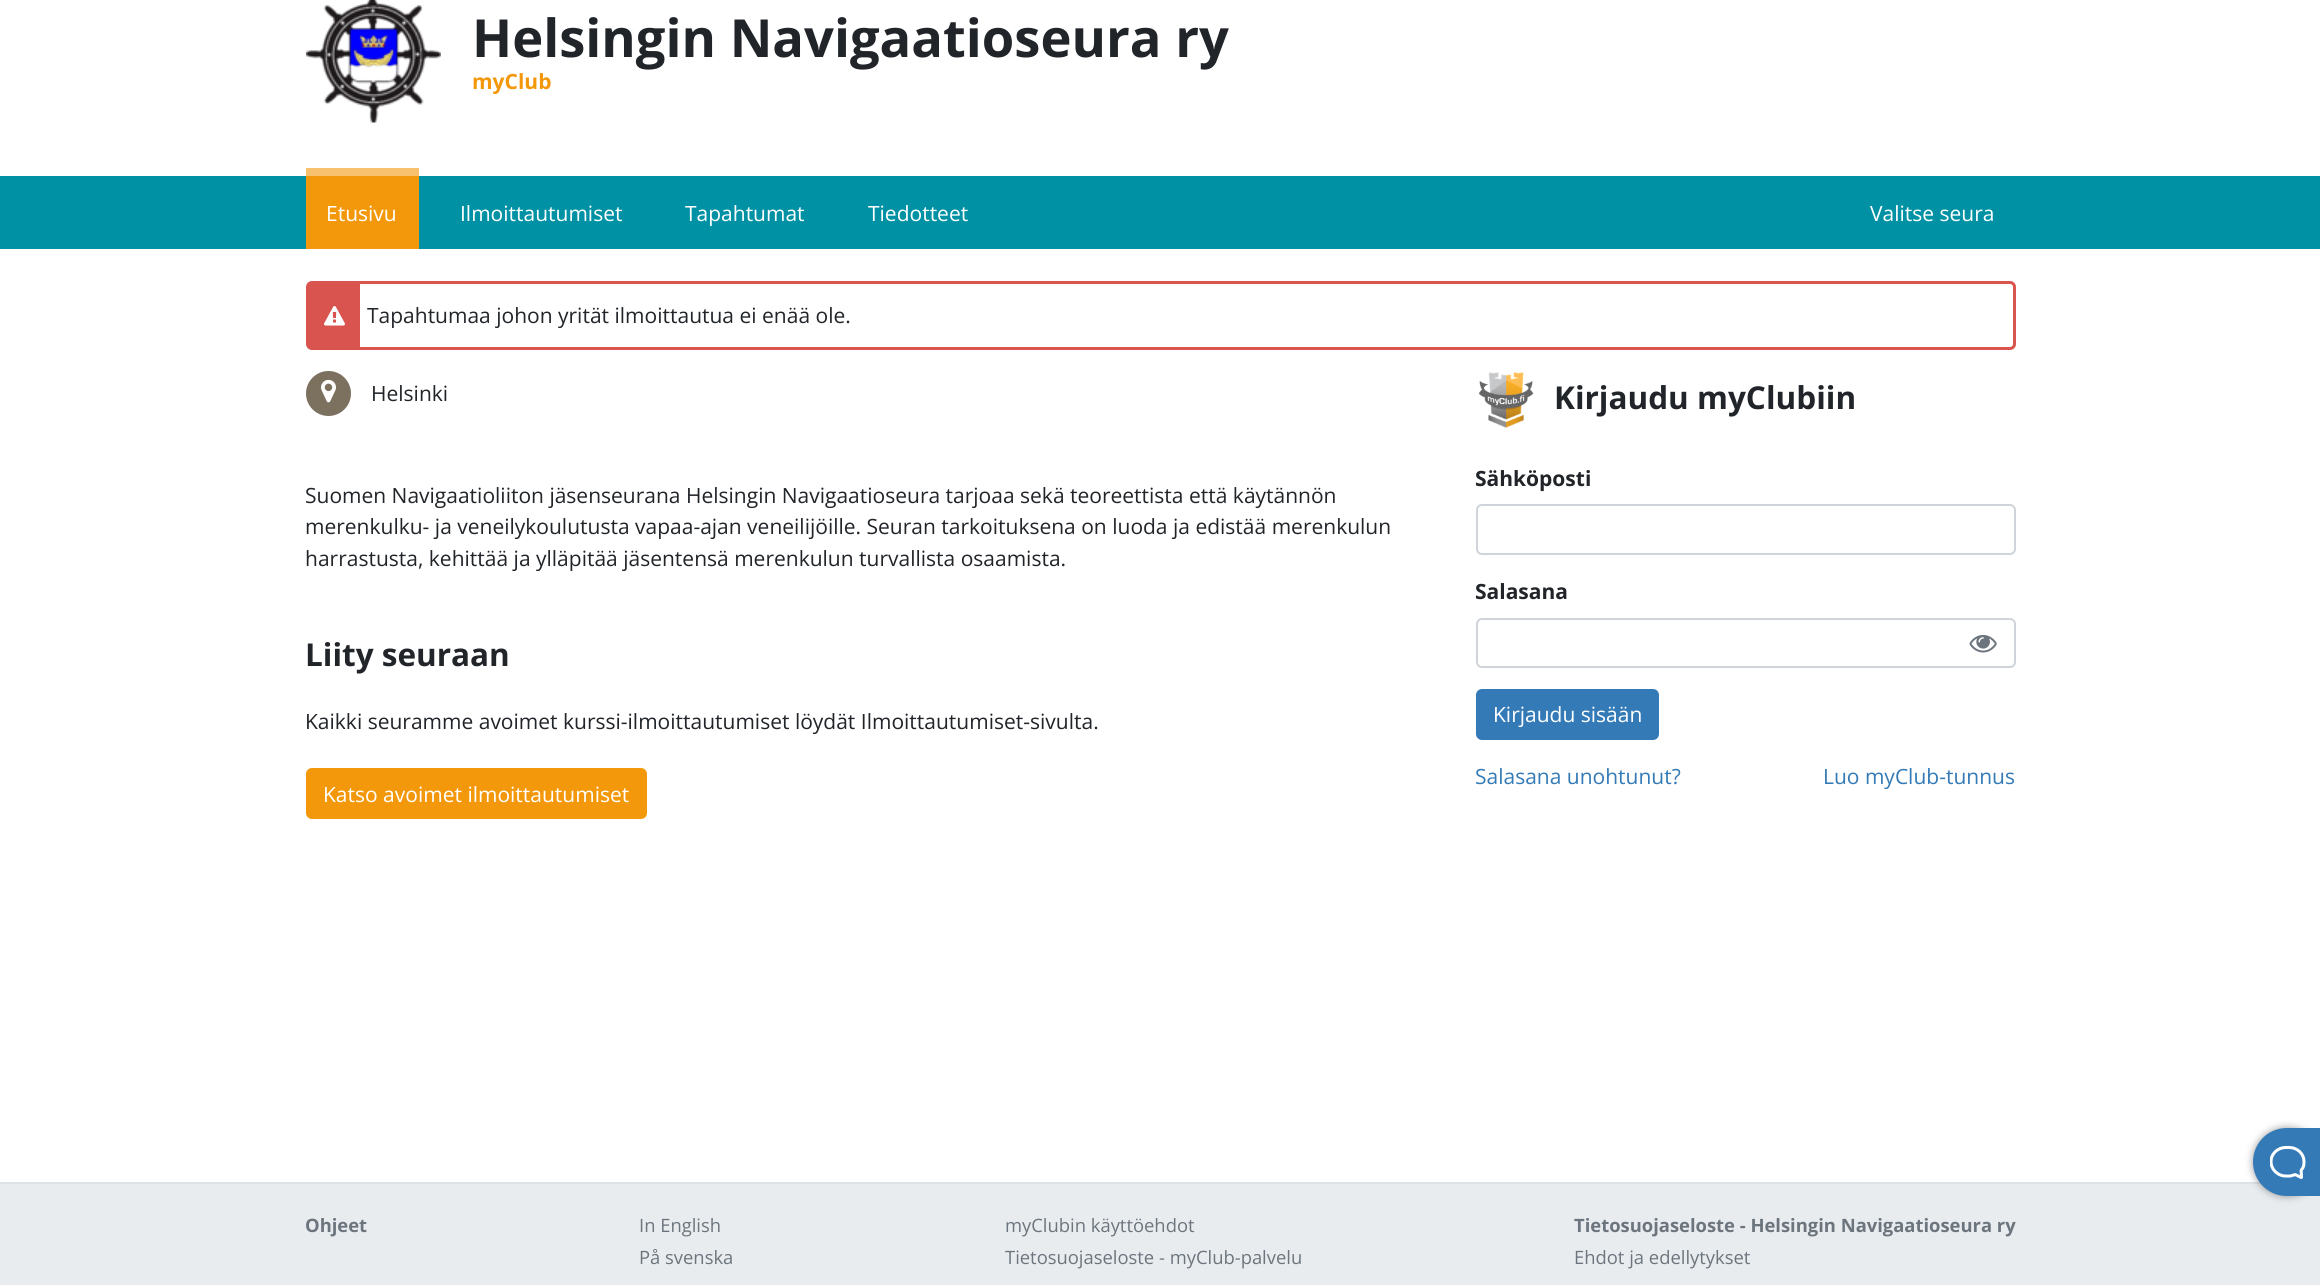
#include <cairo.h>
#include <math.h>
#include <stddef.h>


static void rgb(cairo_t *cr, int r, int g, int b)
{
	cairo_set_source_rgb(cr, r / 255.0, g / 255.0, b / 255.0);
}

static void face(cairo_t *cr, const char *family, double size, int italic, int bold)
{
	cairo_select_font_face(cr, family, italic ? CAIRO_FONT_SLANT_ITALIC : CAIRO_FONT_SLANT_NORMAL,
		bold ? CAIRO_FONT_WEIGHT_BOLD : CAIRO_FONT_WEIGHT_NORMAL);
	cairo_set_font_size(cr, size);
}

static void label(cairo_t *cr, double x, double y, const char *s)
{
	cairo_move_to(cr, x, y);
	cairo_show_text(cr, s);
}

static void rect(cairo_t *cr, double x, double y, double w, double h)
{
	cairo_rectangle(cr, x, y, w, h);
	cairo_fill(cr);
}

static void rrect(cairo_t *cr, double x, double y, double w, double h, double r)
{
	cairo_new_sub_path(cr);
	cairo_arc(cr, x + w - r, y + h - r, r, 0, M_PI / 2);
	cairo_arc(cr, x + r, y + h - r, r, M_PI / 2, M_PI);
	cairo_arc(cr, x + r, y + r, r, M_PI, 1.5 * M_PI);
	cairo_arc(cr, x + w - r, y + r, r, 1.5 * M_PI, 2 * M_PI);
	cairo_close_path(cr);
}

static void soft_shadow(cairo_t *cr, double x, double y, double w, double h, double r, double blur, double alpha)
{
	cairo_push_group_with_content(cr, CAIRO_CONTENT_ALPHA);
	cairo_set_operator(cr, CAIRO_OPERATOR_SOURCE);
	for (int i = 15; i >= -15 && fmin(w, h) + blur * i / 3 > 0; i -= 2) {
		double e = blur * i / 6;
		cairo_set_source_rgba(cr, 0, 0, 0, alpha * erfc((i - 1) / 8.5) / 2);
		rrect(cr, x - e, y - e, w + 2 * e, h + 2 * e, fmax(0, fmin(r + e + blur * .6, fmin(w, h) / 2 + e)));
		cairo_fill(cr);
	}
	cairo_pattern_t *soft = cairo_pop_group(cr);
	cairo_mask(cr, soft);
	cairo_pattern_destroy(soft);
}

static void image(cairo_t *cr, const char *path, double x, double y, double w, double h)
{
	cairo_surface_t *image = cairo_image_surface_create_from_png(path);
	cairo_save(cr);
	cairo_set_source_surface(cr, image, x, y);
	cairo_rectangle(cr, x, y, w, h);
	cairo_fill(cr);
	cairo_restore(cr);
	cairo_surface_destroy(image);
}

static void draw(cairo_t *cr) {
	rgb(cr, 255, 255, 255);
	cairo_paint(cr);
	image(cr, "image0.png", 306, 0, 135, 123);
	face(cr, "Open Sans", 52.5, 0, 1);
	rgb(cr, 33, 37, 41);
	label(cr, 472, 57, "Helsingin Navigaatioseura ry");
	face(cr, "Open Sans", 21, 0, 1);
	rgb(cr, 244, 152, 11);
	label(cr, 472, 89, "myClub");
	rgb(cr, 0, 145, 165);
	rect(cr, 0, 176, 2320, 73);
	rgb(cr, 244, 152, 11);
	rect(cr, 306, 176, 113, 73);
	rgb(cr, 248, 193, 109);
	rect(cr, 306, 168, 113, 8);
	face(cr, "Open Sans", 21, 0, 0);
	rgb(cr, 255, 255, 255);
	label(cr, 326, 221, "Etusivu");
	label(cr, 460, 221, "Ilmoittautumiset");
	label(cr, 685, 221, "Tapahtumat");
	label(cr, 868, 221, "Tiedotteet");
	label(cr, 1870, 221, "Valitse seura");
	rrect(cr, 307.5, 282.5, 1707, 66, 4.5);
	rgb(cr, 217, 83, 79);
	cairo_set_line_width(cr, 3);
	cairo_stroke(cr);
	rect(cr, 309, 284, 51, 63);
	image(cr, "image1.png", 324, 306, 21, 20);
	rgb(cr, 33, 37, 41);
	label(cr, 367, 323, "Tapahtumaa johon yrität ilmoittautua ei enää ole.");
	rgb(cr, 124, 113, 95);
	cairo_new_path(cr);
	cairo_arc(cr, 328.5, 393.5, 22.5, 0, 2 * M_PI);
	cairo_fill(cr);
	image(cr, "image2.png", 321, 379, 15, 24);
	rgb(cr, 33, 37, 41);
	label(cr, 371, 401, "Helsinki");
	label(cr, 305, 503, "Suomen Navigaatioliiton jäsenseurana Helsingin Navigaatioseura tarjoaa sekä teoreettista että käytännön");
	label(cr, 305, 534, "merenkulku- ja veneilykoulutusta vapaa-ajan veneilijöille. Seuran tarkoituksena on luoda ja edistää merenkulun");
	label(cr, 305, 566, "harrastusta, kehittää ja ylläpitää jäsentensä merenkulun turvallista osaamista.");
	face(cr, "Open Sans", 31.5, 0, 1);
	label(cr, 305, 666, "Liity seuraan");
	face(cr, "Open Sans", 21, 0, 0);
	label(cr, 305, 729, "Kaikki seuramme avoimet kurssi-ilmoittautumiset löydät Ilmoittautumiset-sivulta.");
	rgb(cr, 244, 152, 11);
	rrect(cr, 307, 769, 339, 49, 5);
	cairo_fill_preserve(cr);
	cairo_set_line_width(cr, 2);
	cairo_stroke(cr);
	rgb(cr, 255, 255, 255);
	label(cr, 323, 802, "Katso avoimet ilmoittautumiset");
	image(cr, "image3.png", 1478, 372, 56, 56);
	face(cr, "Open Sans", 31.5, 0, 1);
	rgb(cr, 33, 37, 41);
	label(cr, 1554, 409, "Kirjaudu myClubiin");
	face(cr, "Open Sans", 21, 0, 1);
	label(cr, 1475, 486, "Sähköposti");
	rrect(cr, 1477, 505, 538, 49, 5);
	rgb(cr, 206, 212, 218);
	cairo_stroke(cr);
	rgb(cr, 33, 37, 41);
	label(cr, 1475, 599, "Salasana");
	rrect(cr, 1477, 619, 538, 48, 5);
	rgb(cr, 206, 212, 218);
	cairo_stroke(cr);
	image(cr, "image4.png", 1969, 634, 28, 19);
	rgb(cr, 51, 122, 183);
	rrect(cr, 1477, 690, 181, 49, 5);
	cairo_fill_preserve(cr);
	cairo_stroke(cr);
	face(cr, "Open Sans", 21, 0, 0);
	rgb(cr, 255, 255, 255);
	label(cr, 1493, 722, "Kirjaudu sisään");
	rgb(cr, 51, 122, 183);
	label(cr, 1475, 784, "Salasana unohtunut?");
	label(cr, 1823, 784, "Luo myClub-tunnus");
	rgb(cr, 233, 236, 239);
	rect(cr, 0, 1184, 2320, 101);
	rgb(cr, 222, 226, 230);
	rect(cr, 0, 1182, 2261, 2);
	rgb(cr, 0, 0, 0);
	soft_shadow(cr, 2253, 1128, 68, 68, 34, 4, 0.4);
	rgb(cr, 51, 122, 183);
	cairo_new_path(cr);
	cairo_move_to(cr, 2287, 1128);
	cairo_line_to(cr, 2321, 1128);
	cairo_line_to(cr, 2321, 1196);
	cairo_line_to(cr, 2287, 1196);
	cairo_curve_to(cr, 2268, 1196, 2253, 1181, 2253, 1162);
	cairo_curve_to(cr, 2253, 1143, 2268, 1128, 2287, 1128);
	cairo_close_path(cr);
	cairo_fill(cr);
	image(cr, "image5.png", 2270, 1146, 36, 33);
	face(cr, "Open Sans", 18.4, 0, 1);
	rgb(cr, 108, 117, 125);
	label(cr, 305, 1232, "Ohjeet");
	face(cr, "Open Sans", 18.4, 0, 0);
	label(cr, 639, 1232, "In English");
	label(cr, 639, 1264, "På svenska");
	label(cr, 1005, 1232, "myClubin käyttöehdot");
	label(cr, 1005, 1264, "Tietosuojaseloste - myClub-palvelu");
	face(cr, "Open Sans", 18.4, 0, 1);
	label(cr, 1574, 1232, "Tietosuojaseloste - Helsingin Navigaatioseura ry");
	face(cr, "Open Sans", 18.4, 0, 0);
	label(cr, 1574, 1264, "Ehdot ja edellytykset");
}

int main(void) {
	cairo_surface_t *surface = cairo_image_surface_create(CAIRO_FORMAT_RGB24, 2320, 1285);
	cairo_t *cr = cairo_create(surface);
	cairo_font_options_t *options = cairo_font_options_create();
	cairo_font_options_set_hint_metrics(options, CAIRO_HINT_METRICS_OFF);
	cairo_font_options_set_hint_style(options, CAIRO_HINT_STYLE_NONE);
	cairo_set_font_options(cr, options);
	cairo_set_miter_limit(cr, 4);
	draw(cr);
	cairo_surface_write_to_png(surface, "render.png");
	cairo_font_options_destroy(options);
	cairo_destroy(cr);
	cairo_surface_destroy(surface);
	return 0;
}
